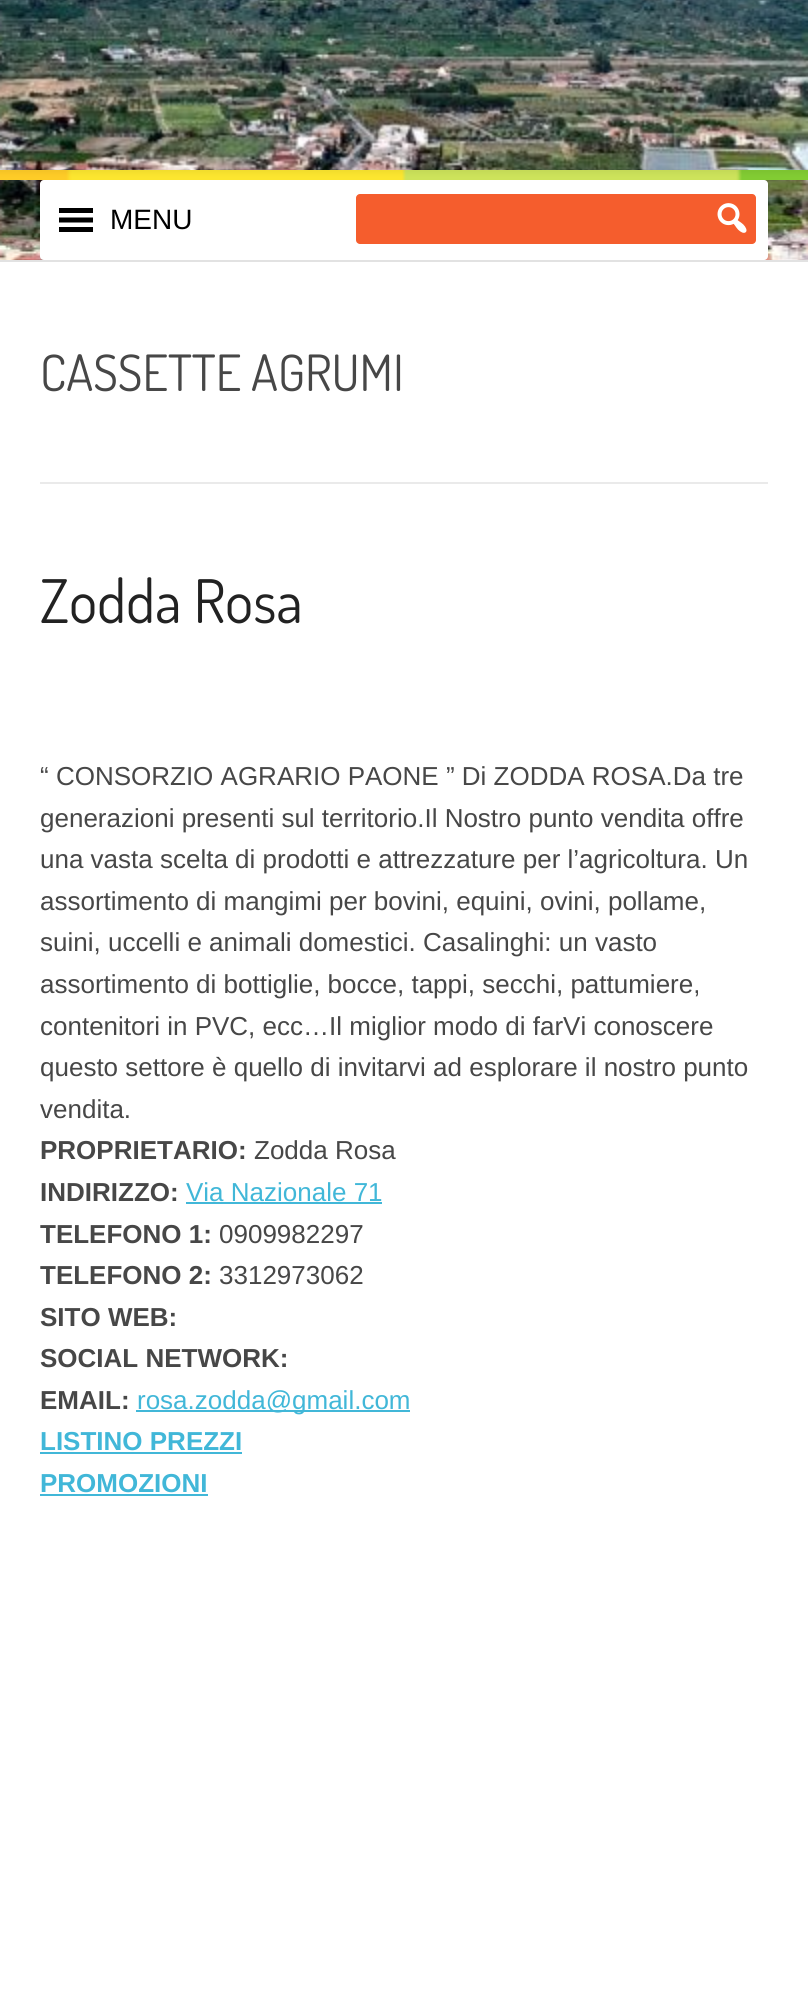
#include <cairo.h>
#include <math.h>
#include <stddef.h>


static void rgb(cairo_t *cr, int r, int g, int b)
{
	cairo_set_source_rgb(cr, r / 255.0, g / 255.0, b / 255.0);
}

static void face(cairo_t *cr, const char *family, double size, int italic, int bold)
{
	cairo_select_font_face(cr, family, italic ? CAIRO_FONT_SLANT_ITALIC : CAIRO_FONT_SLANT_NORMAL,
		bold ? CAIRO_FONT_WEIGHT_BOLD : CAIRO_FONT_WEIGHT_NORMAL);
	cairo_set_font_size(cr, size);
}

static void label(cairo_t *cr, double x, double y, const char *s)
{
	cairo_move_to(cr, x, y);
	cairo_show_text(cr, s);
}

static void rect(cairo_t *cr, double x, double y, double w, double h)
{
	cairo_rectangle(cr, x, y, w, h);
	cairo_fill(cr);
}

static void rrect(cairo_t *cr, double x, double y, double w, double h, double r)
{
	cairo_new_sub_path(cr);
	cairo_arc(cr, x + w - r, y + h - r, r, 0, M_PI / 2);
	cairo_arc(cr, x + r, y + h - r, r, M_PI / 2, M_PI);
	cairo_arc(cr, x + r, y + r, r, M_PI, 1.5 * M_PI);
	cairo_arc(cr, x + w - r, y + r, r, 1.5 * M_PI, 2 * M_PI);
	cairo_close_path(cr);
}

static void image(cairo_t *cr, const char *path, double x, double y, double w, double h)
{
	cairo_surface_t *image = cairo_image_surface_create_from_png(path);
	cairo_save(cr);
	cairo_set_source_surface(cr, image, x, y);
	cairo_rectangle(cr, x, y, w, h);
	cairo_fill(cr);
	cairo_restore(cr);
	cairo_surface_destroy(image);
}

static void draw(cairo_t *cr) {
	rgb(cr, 255, 255, 255);
	cairo_paint(cr);
	image(cr, "image0.png", 0, 0, 808, 260);
	image(cr, "image1.png", 0, 170, 808, 10);
	rgb(cr, 226, 226, 226);
	rect(cr, 0, 260, 808, 2);
	rgb(cr, 255, 255, 255);
	rrect(cr, 40, 180, 728, 80, 4);
	cairo_fill(cr);
	rgb(cr, 0, 0, 0);
	cairo_new_path(cr);
	cairo_move_to(cr, 59, 232);
	cairo_line_to(cr, 93, 232);
	cairo_line_to(cr, 93, 227);
	cairo_line_to(cr, 59, 227);
	cairo_close_path(cr);
	cairo_move_to(cr, 59, 208);
	cairo_line_to(cr, 59, 213);
	cairo_line_to(cr, 93, 213);
	cairo_line_to(cr, 93, 208);
	cairo_close_path(cr);
	cairo_move_to(cr, 59, 222.5);
	cairo_line_to(cr, 93, 222.5);
	cairo_line_to(cr, 93, 217.5);
	cairo_line_to(cr, 59, 217.5);
	cairo_close_path(cr);
	cairo_fill(cr);
	face(cr, "Liberation Sans", 28, 0, 0);
	label(cr, 110, 229, "MENU");
	rgb(cr, 245, 93, 45);
	rrect(cr, 356, 194, 400, 50, 4);
	cairo_fill(cr);
	image(cr, "image2.png", 717, 203, 30, 30);
	rgb(cr, 234, 234, 234);
	rect(cr, 40, 482, 728, 2);
	face(cr, "Dosis", 50, 0, 0);
	rgb(cr, 71, 71, 71);
	label(cr, 40, 391, "CASSETTE AGRUMI");
	face(cr, "Dosis", 60, 0, 0);
	rgb(cr, 34, 34, 34);
	label(cr, 40, 623, "Zodda Rosa");
	face(cr, "Liberation Sans", 26, 0, 0);
	rgb(cr, 71, 71, 71);
	label(cr, 40, 785, "“ CONSORZIO AGRARIO PAONE ” Di ZODDA ROSA.Da tre");
	label(cr, 40, 827, "generazioni presenti sul territorio.Il Nostro punto vendita offre");
	label(cr, 40, 868, "una vasta scelta di prodotti e attrezzature per l’agricoltura. Un");
	label(cr, 40, 910, "assortimento di mangimi per bovini, equini, ovini, pollame,");
	label(cr, 40, 951, "suini, uccelli e animali domestici. Casalinghi: un vasto");
	label(cr, 40, 993, "assortimento di bottiglie, bocce, tappi, secchi, pattumiere,");
	label(cr, 40, 1035, "contenitori in PVC, ecc…Il miglior modo di farVi conoscere");
	label(cr, 40, 1076, "questo settore è quello di invitarvi ad esplorare il nostro punto");
	label(cr, 40, 1118, "vendita.");
	face(cr, "Liberation Sans", 26, 0, 1);
	label(cr, 40, 1159, "PROPRIETARIO:");
	face(cr, "Liberation Sans", 26, 0, 0);
	label(cr, 254, 1159, "Zodda Rosa");
	face(cr, "Liberation Sans", 26, 0, 1);
	label(cr, 40, 1201, "INDIRIZZO:");
	face(cr, "Liberation Sans", 26, 0, 0);
	rgb(cr, 65, 183, 216);
	label(cr, 186, 1201, "Via Nazionale 71");
	rect(cr, 186, 1202, 196, 2);
	face(cr, "Liberation Sans", 26, 0, 1);
	rgb(cr, 71, 71, 71);
	label(cr, 40, 1243, "TELEFONO 1:");
	face(cr, "Liberation Sans", 26, 0, 0);
	label(cr, 219, 1243, "0909982297");
	face(cr, "Liberation Sans", 26, 0, 1);
	label(cr, 40, 1284, "TELEFONO 2:");
	face(cr, "Liberation Sans", 26, 0, 0);
	label(cr, 219, 1284, "3312973062");
	face(cr, "Liberation Sans", 26, 0, 1);
	label(cr, 40, 1326, "SITO WEB:");
	label(cr, 40, 1367, "SOCIAL NETWORK:");
	label(cr, 40, 1409, "EMAIL:");
	rgb(cr, 65, 183, 216);
	rect(cr, 136, 1410, 274, 2);
	face(cr, "Liberation Sans", 26, 0, 0);
	label(cr, 137, 1409, "rosa.zodda@gmail.com");
	face(cr, "Liberation Sans", 26, 0, 1);
	label(cr, 40, 1450, "LISTINO PREZZI");
	rect(cr, 40, 1452, 202, 2);
	label(cr, 40, 1492, "PROMOZIONI");
	rect(cr, 40, 1494, 168, 2);
}

int main(void) {
	cairo_surface_t *surface = cairo_image_surface_create(CAIRO_FORMAT_RGB24, 808, 2007);
	cairo_t *cr = cairo_create(surface);
	cairo_font_options_t *options = cairo_font_options_create();
	cairo_font_options_set_hint_metrics(options, CAIRO_HINT_METRICS_OFF);
	cairo_font_options_set_hint_style(options, CAIRO_HINT_STYLE_NONE);
	cairo_set_font_options(cr, options);
	cairo_set_miter_limit(cr, 4);
	draw(cr);
	cairo_surface_write_to_png(surface, "render.png");
	cairo_font_options_destroy(options);
	cairo_destroy(cr);
	cairo_surface_destroy(surface);
	return 0;
}
